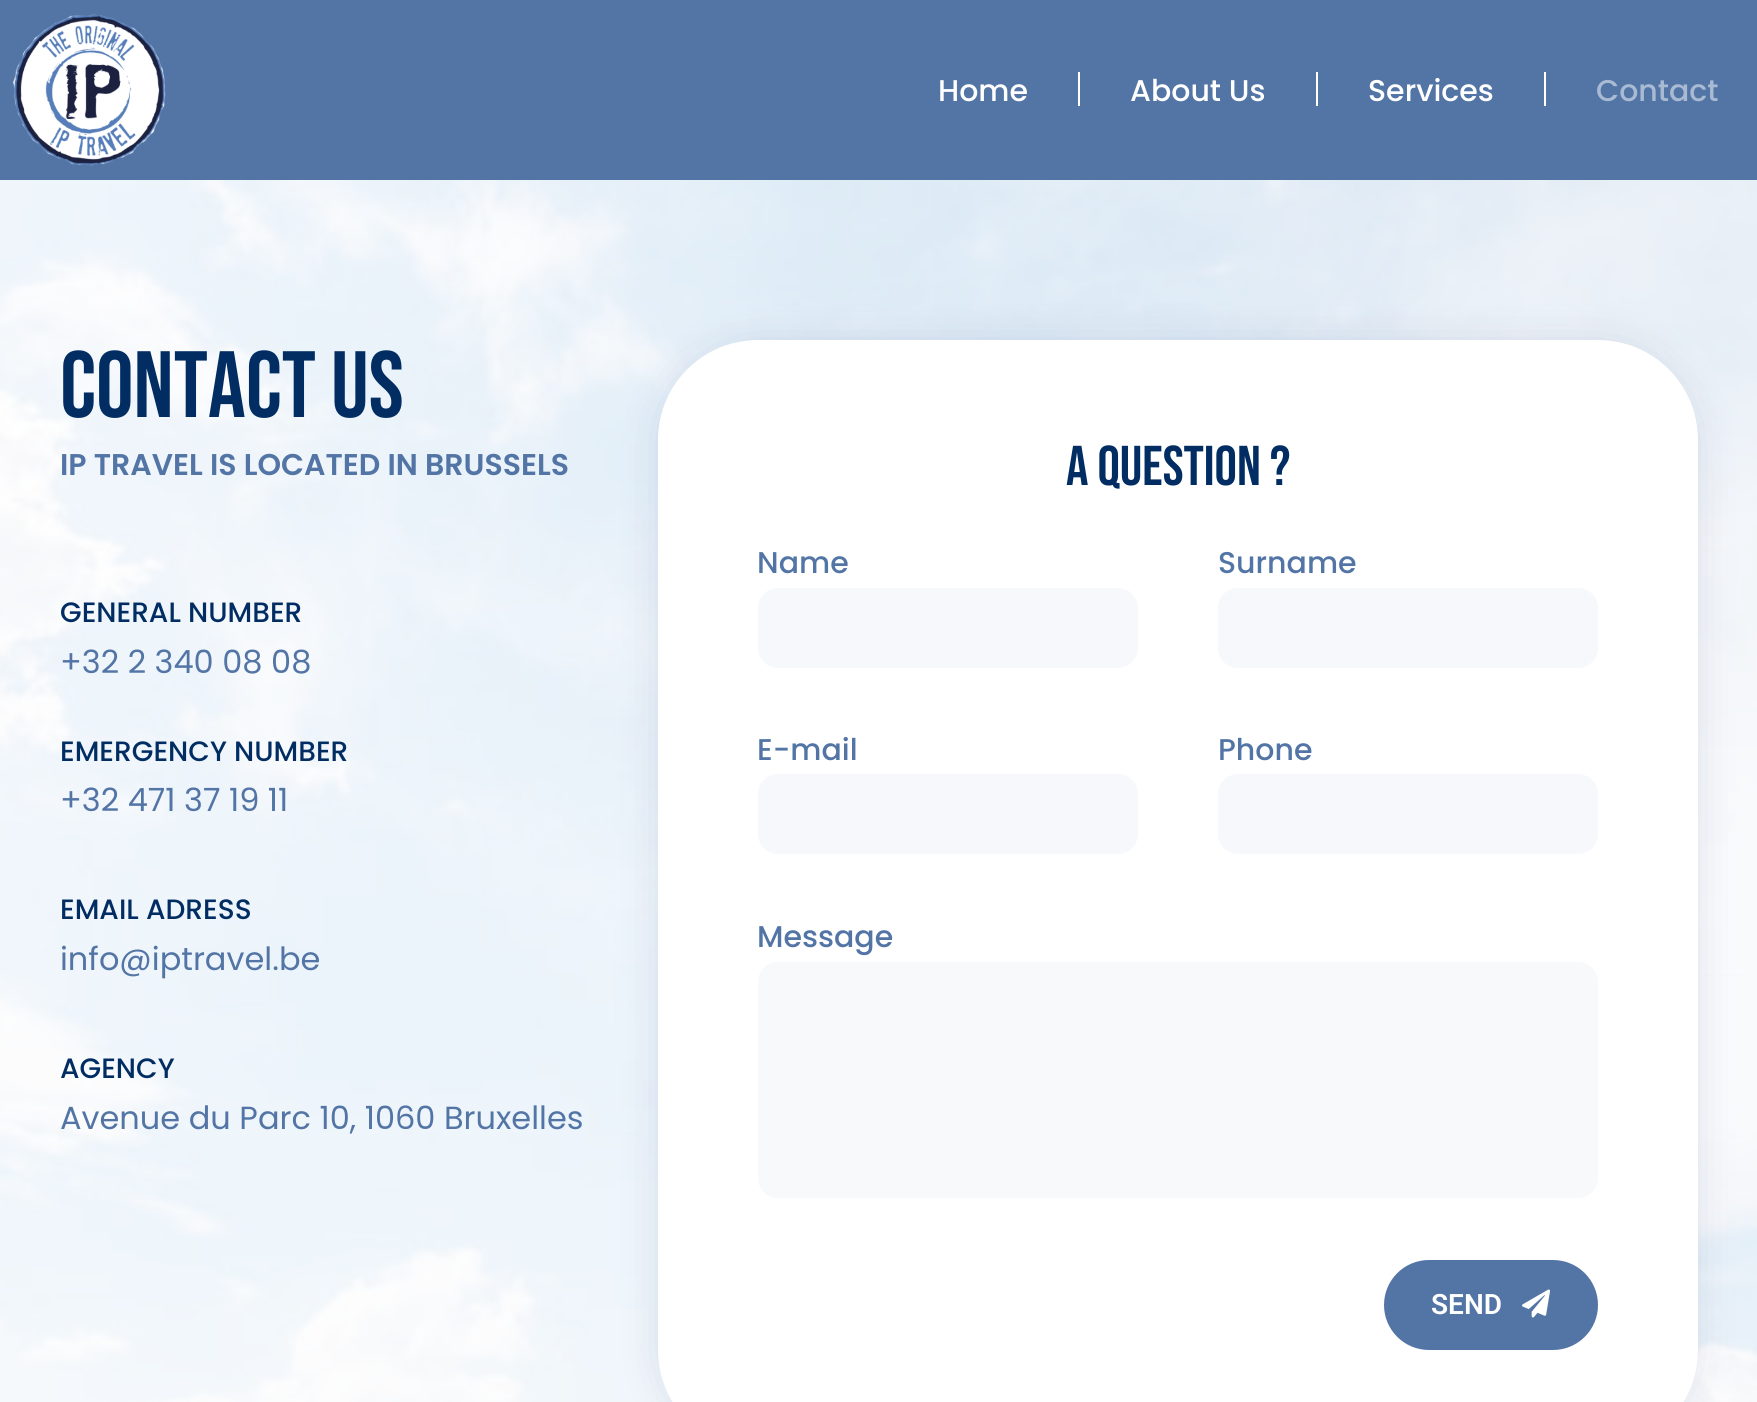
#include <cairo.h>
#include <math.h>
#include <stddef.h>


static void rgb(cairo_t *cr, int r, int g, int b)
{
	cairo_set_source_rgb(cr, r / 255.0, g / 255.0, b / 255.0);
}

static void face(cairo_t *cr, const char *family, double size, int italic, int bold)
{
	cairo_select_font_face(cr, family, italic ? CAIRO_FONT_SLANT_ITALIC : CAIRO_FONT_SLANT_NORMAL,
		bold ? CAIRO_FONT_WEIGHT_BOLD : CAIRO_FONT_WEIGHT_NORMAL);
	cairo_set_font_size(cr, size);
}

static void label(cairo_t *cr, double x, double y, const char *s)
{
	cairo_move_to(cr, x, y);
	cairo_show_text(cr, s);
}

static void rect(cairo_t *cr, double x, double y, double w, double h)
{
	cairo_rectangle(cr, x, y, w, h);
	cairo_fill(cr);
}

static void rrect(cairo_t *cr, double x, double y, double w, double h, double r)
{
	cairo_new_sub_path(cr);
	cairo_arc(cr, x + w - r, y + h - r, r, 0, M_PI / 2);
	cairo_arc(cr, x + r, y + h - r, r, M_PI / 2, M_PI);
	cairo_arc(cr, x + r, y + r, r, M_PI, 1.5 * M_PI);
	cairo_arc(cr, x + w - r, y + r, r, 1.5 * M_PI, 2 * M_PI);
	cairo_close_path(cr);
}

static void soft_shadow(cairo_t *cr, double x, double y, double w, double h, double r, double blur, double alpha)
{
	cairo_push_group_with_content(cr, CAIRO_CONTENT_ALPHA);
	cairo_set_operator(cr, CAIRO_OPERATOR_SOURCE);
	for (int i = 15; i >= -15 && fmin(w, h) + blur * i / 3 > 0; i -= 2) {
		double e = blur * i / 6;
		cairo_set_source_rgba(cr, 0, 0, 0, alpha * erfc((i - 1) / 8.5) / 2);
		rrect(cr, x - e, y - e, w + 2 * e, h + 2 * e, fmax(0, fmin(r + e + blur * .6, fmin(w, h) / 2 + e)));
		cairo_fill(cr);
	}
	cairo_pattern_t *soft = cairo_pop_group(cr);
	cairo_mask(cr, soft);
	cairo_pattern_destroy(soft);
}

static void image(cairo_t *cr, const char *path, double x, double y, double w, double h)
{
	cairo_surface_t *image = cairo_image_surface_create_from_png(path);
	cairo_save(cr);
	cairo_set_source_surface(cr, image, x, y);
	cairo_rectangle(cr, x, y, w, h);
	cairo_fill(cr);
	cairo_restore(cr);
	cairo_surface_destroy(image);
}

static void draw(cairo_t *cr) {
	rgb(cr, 83, 117, 166);
	cairo_paint(cr);
	image(cr, "image0.png", 12, 14, 154, 152);
	face(cr, "Poppins Medium", 30, 0, 0);
	rgb(cr, 255, 255, 255);
	label(cr, 938, 101, "Home");
	rect(cr, 1078, 72, 2, 34);
	label(cr, 1130, 101, "About Us");
	rect(cr, 1316, 72, 2, 34);
	label(cr, 1368, 101, "Services");
	rect(cr, 1544, 72, 2, 34);
	rgb(cr, 169, 186, 211);
	label(cr, 1596, 101, "Contact");
	image(cr, "image1.png", 0, 180, 1757, 1222);
	face(cr, "Bebas Neue", 94, 0, 0);
	rgb(cr, 1, 45, 99);
	label(cr, 60, 417, "Contact Us");
	face(cr, "Poppins SemiBold", 30, 0, 0);
	rgb(cr, 83, 117, 166);
	label(cr, 60, 475, "IP TRAVEL IS LOCATED IN BRUSSELS");
	face(cr, "Poppins Medium", 28, 0, 0);
	rgb(cr, 1, 45, 99);
	label(cr, 60, 622, "GENERAL NUMBER");
	face(cr, "Poppins", 32, 0, 0);
	rgb(cr, 83, 117, 166);
	label(cr, 60, 673, "+32 2 340 08 08");
	face(cr, "Poppins Medium", 28, 0, 0);
	rgb(cr, 1, 45, 99);
	label(cr, 60, 761, "EMERGENCY NUMBER");
	face(cr, "Poppins", 32, 0, 0);
	rgb(cr, 83, 117, 166);
	label(cr, 60, 811, "+32 471 37 19 11");
	face(cr, "Poppins Medium", 28, 0, 0);
	rgb(cr, 1, 45, 99);
	label(cr, 60, 919, "EMAIL ADRESS");
	face(cr, "Poppins", 32, 0, 0);
	rgb(cr, 83, 117, 166);
	label(cr, 60, 970, "info@iptravel.be");
	face(cr, "Poppins Medium", 28, 0, 0);
	rgb(cr, 1, 45, 99);
	label(cr, 60, 1078, "AGENCY");
	face(cr, "Poppins", 32, 0, 0);
	rgb(cr, 83, 117, 166);
	label(cr, 60, 1129, "Avenue du Parc 10, 1060 Bruxelles");
	rgb(cr, 73, 86, 144);
	soft_shadow(cr, 658, 340, 1040, 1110, 100, 20, 0.15);
	rgb(cr, 255, 255, 255);
	rrect(cr, 658, 340, 1040, 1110, 100);
	cairo_fill(cr);
	face(cr, "Bebas Neue", 56, 0, 0);
	rgb(cr, 1, 45, 99);
	label(cr, 1066, 485, "A question ?");
	face(cr, "Poppins Medium", 30, 0, 0);
	rgb(cr, 83, 117, 166);
	label(cr, 757, 573, "Name");
	rgb(cr, 246, 248, 251);
	rrect(cr, 758, 588, 380, 80, 20);
	cairo_fill(cr);
	rgb(cr, 83, 117, 166);
	label(cr, 1218, 573, "Surname");
	rgb(cr, 246, 248, 251);
	rrect(cr, 1218, 588, 380, 80, 20);
	cairo_fill(cr);
	rgb(cr, 83, 117, 166);
	label(cr, 757, 760, "E-mail");
	rgb(cr, 246, 248, 251);
	rrect(cr, 758, 774, 380, 80, 20);
	cairo_fill(cr);
	rgb(cr, 83, 117, 166);
	label(cr, 1218, 760, "Phone");
	rgb(cr, 246, 248, 251);
	rrect(cr, 1218, 774, 380, 80, 20);
	cairo_fill(cr);
	rgb(cr, 83, 117, 166);
	label(cr, 757, 947, "Message");
	rgb(cr, 247, 249, 251);
	rrect(cr, 758, 962, 840, 236, 20);
	cairo_fill(cr);
	rgb(cr, 83, 117, 166);
	rrect(cr, 1384, 1260, 214, 90, 45);
	cairo_fill(cr);
	face(cr, "Roboto SemiBold", 28, 0, 0);
	rgb(cr, 255, 255, 255);
	label(cr, 1431, 1314, "SEND");
	image(cr, "image2.png", 1522, 1289, 28, 29);
}

int main(void) {
	cairo_surface_t *surface = cairo_image_surface_create(CAIRO_FORMAT_RGB24, 1757, 1402);
	cairo_t *cr = cairo_create(surface);
	cairo_font_options_t *options = cairo_font_options_create();
	cairo_font_options_set_hint_metrics(options, CAIRO_HINT_METRICS_OFF);
	cairo_font_options_set_hint_style(options, CAIRO_HINT_STYLE_NONE);
	cairo_set_font_options(cr, options);
	cairo_set_miter_limit(cr, 4);
	draw(cr);
	cairo_surface_write_to_png(surface, "render.png");
	cairo_font_options_destroy(options);
	cairo_destroy(cr);
	cairo_surface_destroy(surface);
	return 0;
}
